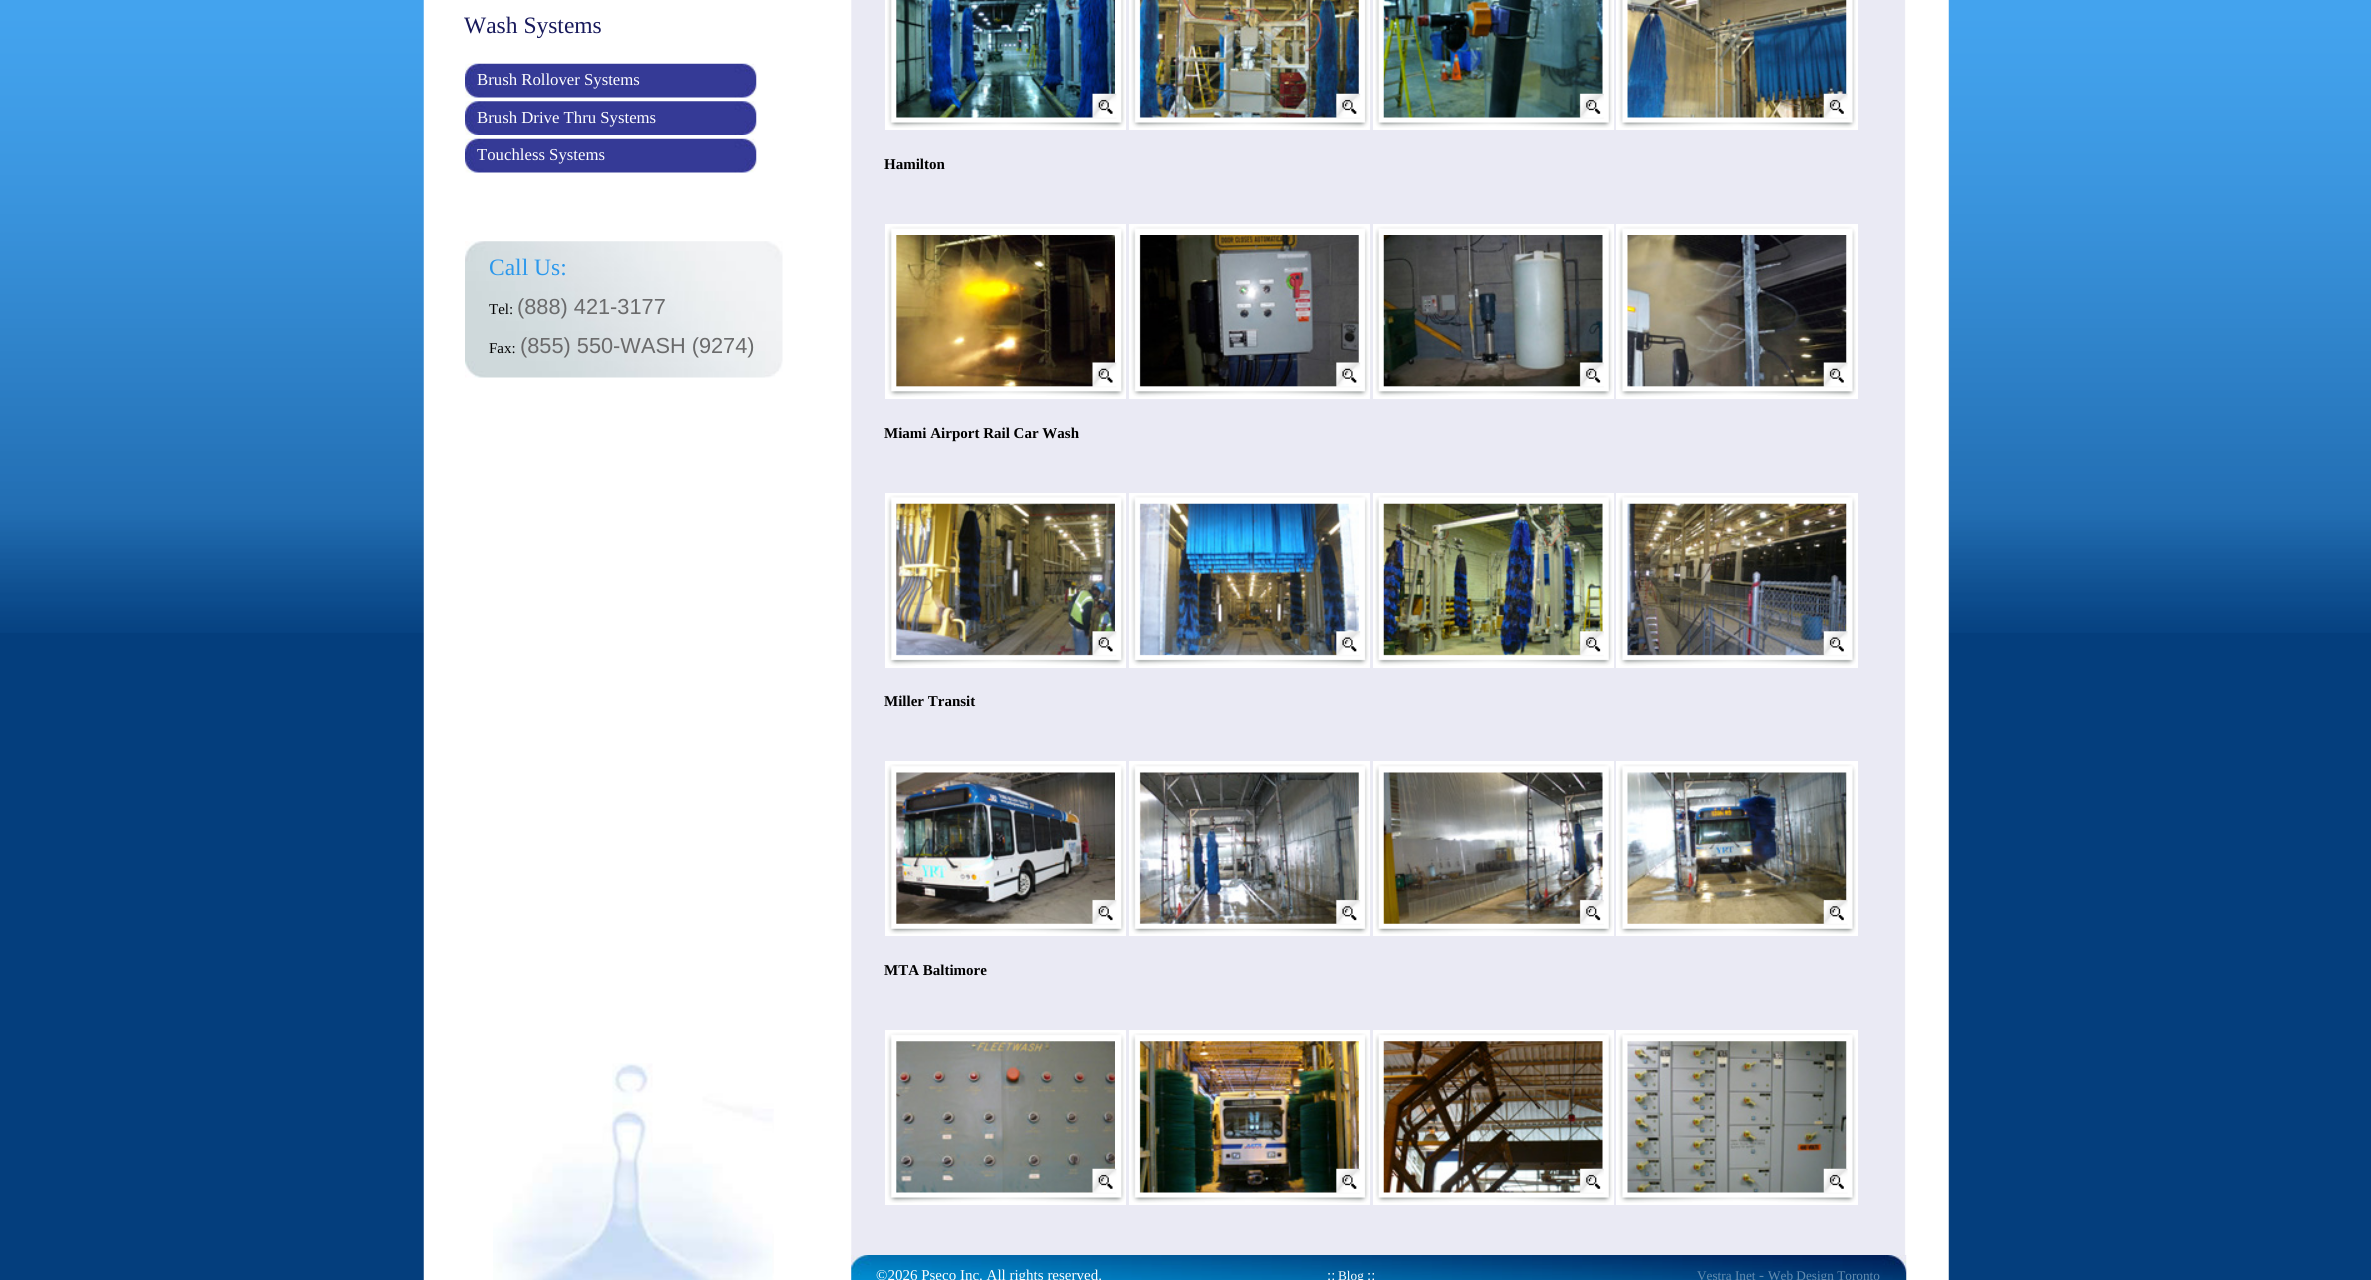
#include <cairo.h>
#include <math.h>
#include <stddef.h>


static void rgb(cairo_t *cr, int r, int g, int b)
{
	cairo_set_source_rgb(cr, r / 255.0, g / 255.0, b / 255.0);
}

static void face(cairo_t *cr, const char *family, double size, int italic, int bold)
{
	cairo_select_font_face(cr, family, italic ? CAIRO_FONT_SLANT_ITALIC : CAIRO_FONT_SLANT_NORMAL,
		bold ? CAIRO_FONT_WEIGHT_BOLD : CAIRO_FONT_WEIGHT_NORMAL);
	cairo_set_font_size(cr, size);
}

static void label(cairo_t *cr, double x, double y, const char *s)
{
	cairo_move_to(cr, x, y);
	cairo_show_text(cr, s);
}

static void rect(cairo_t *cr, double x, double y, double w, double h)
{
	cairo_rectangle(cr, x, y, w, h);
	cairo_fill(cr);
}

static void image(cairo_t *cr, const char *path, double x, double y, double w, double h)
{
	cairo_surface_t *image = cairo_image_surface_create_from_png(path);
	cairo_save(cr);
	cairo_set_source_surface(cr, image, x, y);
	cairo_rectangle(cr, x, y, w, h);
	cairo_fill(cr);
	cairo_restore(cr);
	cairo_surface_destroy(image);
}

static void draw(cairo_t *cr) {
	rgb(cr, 4, 62, 125);
	cairo_paint(cr);
	image(cr, "image0.png", 0, 0, 2371, 633);
	image(cr, "image1.png", 423, 0, 1526, 1280);
	image(cr, "image2.png", 493, 1063, 281, 217);
	face(cr, "Liberation Serif", 23.5, 0, 0);
	rgb(cr, 24, 26, 92);
	label(cr, 464, 33, "Wash Systems");
	image(cr, "image3.png", 465, 63, 292, 35);
	face(cr, "Liberation Serif", 16.75, 0, 0);
	rgb(cr, 255, 255, 255);
	label(cr, 477, 85, "Brush Rollover Systems");
	image(cr, "image4.png", 465, 101, 292, 34);
	label(cr, 477, 123, "Brush Drive Thru Systems");
	image(cr, "image3.png", 465, 138, 292, 35);
	label(cr, 477, 160, "Touchless Systems");
	image(cr, "image5.png", 465, 241, 318, 137);
	face(cr, "Liberation Serif", 23.5, 0, 0);
	rgb(cr, 43, 152, 236);
	label(cr, 489, 275, "Call Us:");
	face(cr, "Liberation Serif", 15, 0, 0);
	rgb(cr, 0, 0, 0);
	label(cr, 489, 314, "Tel:");
	face(cr, "Liberation Sans", 21.75, 0, 0);
	rgb(cr, 106, 106, 107);
	label(cr, 517, 314, "(888) 421-3177");
	face(cr, "Liberation Serif", 15, 0, 0);
	rgb(cr, 0, 0, 0);
	label(cr, 489, 353, "Fax:");
	face(cr, "Liberation Sans", 21.75, 0, 0);
	rgb(cr, 106, 106, 107);
	label(cr, 520, 353, "(855) 550-WASH (9274)");
	rgb(cr, 255, 255, 255);
	rect(cr, 885, 0, 241, 130);
	image(cr, "image6.png", 896, 0, 219, 118);
	image(cr, "image7.png", 887, 0, 238, 128);
	rect(cr, 1129, 0, 241, 130);
	image(cr, "image8.png", 1139, 0, 220, 118);
	image(cr, "image9.png", 1131, 0, 238, 128);
	rect(cr, 1373, 0, 241, 130);
	image(cr, "image10.png", 1383, 0, 220, 118);
	image(cr, "image11.png", 1375, 0, 238, 128);
	rect(cr, 1616, 0, 242, 130);
	image(cr, "image12.png", 1627, 0, 220, 118);
	image(cr, "image13.png", 1618, 0, 238, 128);
	face(cr, "Liberation Serif", 15, 0, 1);
	rgb(cr, 0, 0, 0);
	label(cr, 884, 169, "Hamilton");
	rgb(cr, 255, 255, 255);
	rect(cr, 885, 224, 241, 175);
	image(cr, "image14.png", 896, 235, 219, 152);
	image(cr, "image15.png", 887, 226, 238, 171);
	rect(cr, 1129, 224, 241, 175);
	image(cr, "image16.png", 1139, 235, 220, 152);
	image(cr, "image17.png", 1131, 226, 238, 171);
	rect(cr, 1373, 224, 241, 175);
	image(cr, "image18.png", 1383, 235, 220, 152);
	image(cr, "image19.png", 1375, 226, 238, 171);
	rect(cr, 1616, 224, 242, 175);
	image(cr, "image20.png", 1627, 235, 220, 152);
	image(cr, "image21.png", 1618, 226, 238, 171);
	rgb(cr, 0, 0, 0);
	label(cr, 884, 438, "Miami Airport Rail Car Wash");
	rgb(cr, 255, 255, 255);
	rect(cr, 885, 493, 241, 175);
	image(cr, "image22.png", 896, 503, 219, 153);
	image(cr, "image23.png", 887, 495, 238, 171);
	rect(cr, 1129, 493, 241, 175);
	image(cr, "image24.png", 1139, 503, 220, 153);
	image(cr, "image25.png", 1131, 495, 238, 171);
	rect(cr, 1373, 493, 241, 175);
	image(cr, "image26.png", 1383, 503, 220, 153);
	image(cr, "image27.png", 1375, 495, 238, 171);
	rect(cr, 1616, 493, 242, 175);
	image(cr, "image28.png", 1627, 503, 220, 153);
	image(cr, "image29.png", 1618, 495, 238, 171);
	rgb(cr, 0, 0, 0);
	label(cr, 884, 706, "Miller Transit");
	rgb(cr, 255, 255, 255);
	rect(cr, 885, 761, 241, 175);
	image(cr, "image30.png", 896, 772, 219, 152);
	image(cr, "image31.png", 887, 764, 238, 170);
	rect(cr, 1129, 761, 241, 175);
	image(cr, "image32.png", 1139, 772, 220, 152);
	image(cr, "image33.png", 1131, 764, 238, 170);
	rect(cr, 1373, 761, 241, 175);
	image(cr, "image34.png", 1383, 772, 220, 152);
	image(cr, "image35.png", 1375, 764, 238, 170);
	rect(cr, 1616, 761, 242, 175);
	image(cr, "image36.png", 1627, 772, 220, 152);
	image(cr, "image37.png", 1618, 764, 238, 170);
	rgb(cr, 0, 0, 0);
	label(cr, 884, 975, "MTA Baltimore");
	rgb(cr, 255, 255, 255);
	rect(cr, 885, 1030, 241, 175);
	image(cr, "image38.png", 896, 1041, 219, 152);
	image(cr, "image39.png", 887, 1032, 238, 171);
	rect(cr, 1129, 1030, 241, 175);
	image(cr, "image40.png", 1139, 1041, 220, 152);
	image(cr, "image41.png", 1131, 1033, 238, 170);
	rect(cr, 1373, 1030, 241, 175);
	image(cr, "image42.png", 1383, 1041, 220, 152);
	image(cr, "image43.png", 1375, 1033, 238, 170);
	rect(cr, 1616, 1030, 242, 175);
	image(cr, "image44.png", 1627, 1041, 220, 152);
	image(cr, "image45.png", 1618, 1033, 238, 170);
	image(cr, "image46.png", 851, 1255, 1056, 25);
	face(cr, "Liberation Serif", 15, 0, 0);
	label(cr, 876, 1280, "©2026 Pseco Inc. All rights reserved.");
	label(cr, 1327, 1280, "::");
	face(cr, "Liberation Serif", 13.25, 0, 0);
	label(cr, 1338, 1280, "Blog");
	face(cr, "Liberation Serif", 15, 0, 0);
	label(cr, 1367, 1280, "::");
	face(cr, "Liberation Serif", 13.25, 0, 0);
	rgb(cr, 100, 140, 176);
	label(cr, 1697, 1280, "Vestra Inet");
	face(cr, "Liberation Serif", 15, 0, 0);
	label(cr, 1759, 1280, "-");
	face(cr, "Liberation Serif", 13.25, 0, 0);
	label(cr, 1768, 1280, "Web Design Toronto");
}

int main(void) {
	cairo_surface_t *surface = cairo_image_surface_create(CAIRO_FORMAT_RGB24, 2371, 1280);
	cairo_t *cr = cairo_create(surface);
	cairo_font_options_t *options = cairo_font_options_create();
	cairo_font_options_set_hint_metrics(options, CAIRO_HINT_METRICS_OFF);
	cairo_font_options_set_hint_style(options, CAIRO_HINT_STYLE_NONE);
	cairo_set_font_options(cr, options);
	cairo_set_miter_limit(cr, 4);
	draw(cr);
	cairo_surface_write_to_png(surface, "render.png");
	cairo_font_options_destroy(options);
	cairo_destroy(cr);
	cairo_surface_destroy(surface);
	return 0;
}
